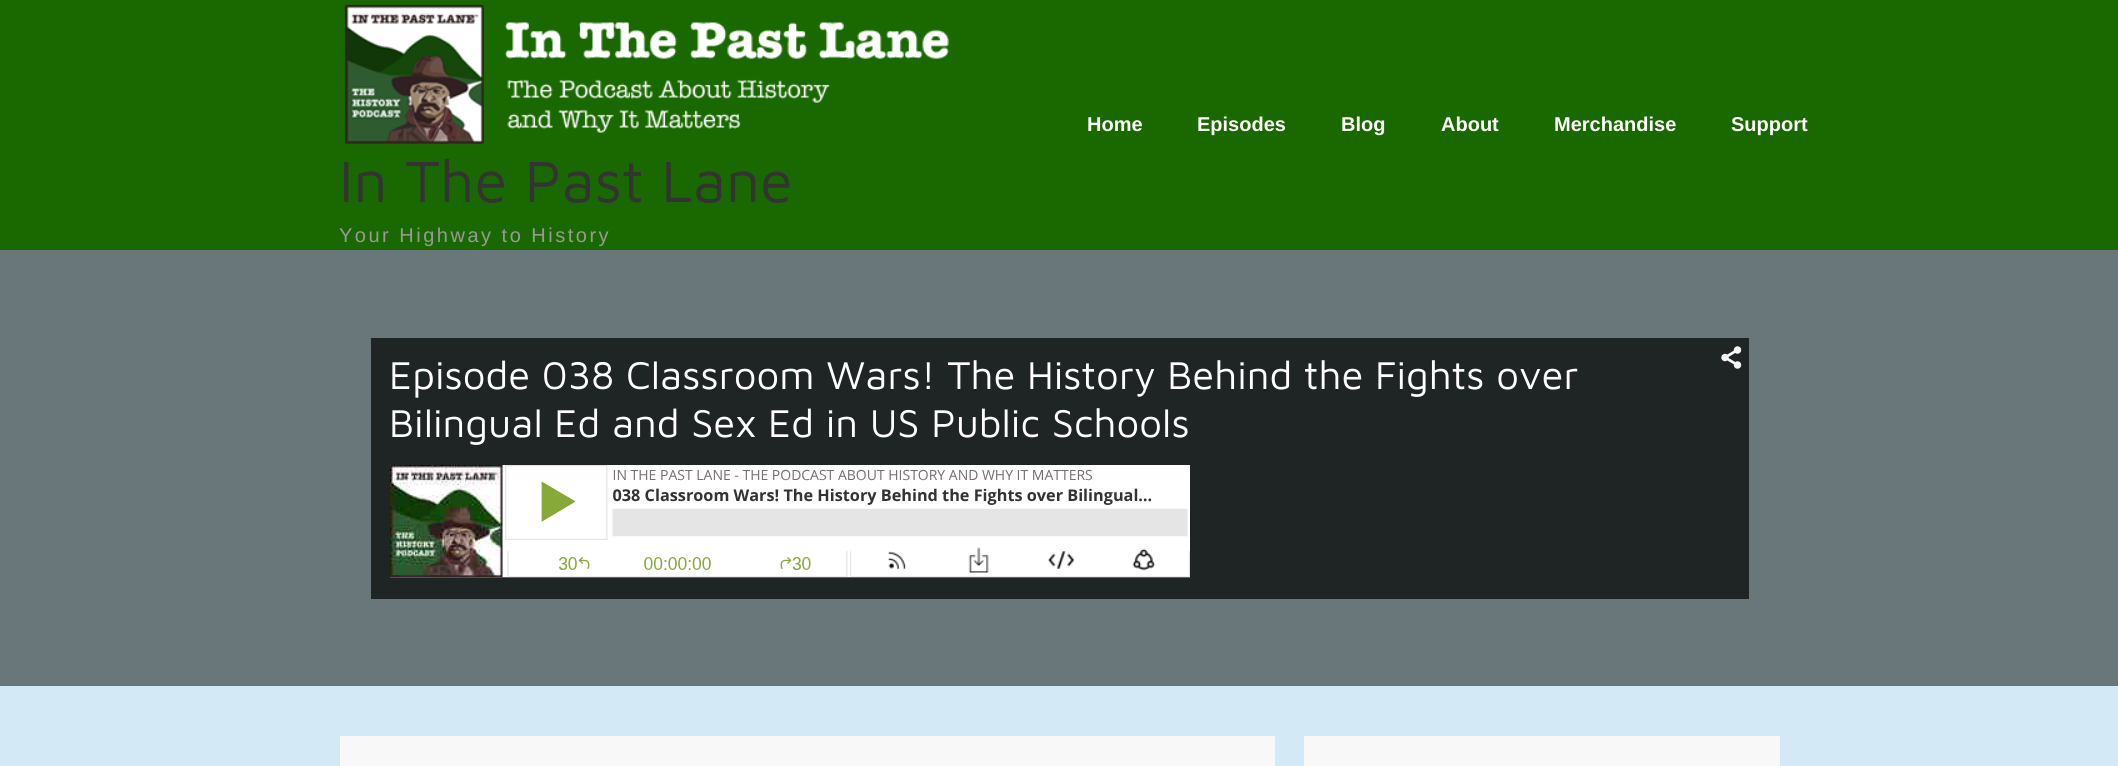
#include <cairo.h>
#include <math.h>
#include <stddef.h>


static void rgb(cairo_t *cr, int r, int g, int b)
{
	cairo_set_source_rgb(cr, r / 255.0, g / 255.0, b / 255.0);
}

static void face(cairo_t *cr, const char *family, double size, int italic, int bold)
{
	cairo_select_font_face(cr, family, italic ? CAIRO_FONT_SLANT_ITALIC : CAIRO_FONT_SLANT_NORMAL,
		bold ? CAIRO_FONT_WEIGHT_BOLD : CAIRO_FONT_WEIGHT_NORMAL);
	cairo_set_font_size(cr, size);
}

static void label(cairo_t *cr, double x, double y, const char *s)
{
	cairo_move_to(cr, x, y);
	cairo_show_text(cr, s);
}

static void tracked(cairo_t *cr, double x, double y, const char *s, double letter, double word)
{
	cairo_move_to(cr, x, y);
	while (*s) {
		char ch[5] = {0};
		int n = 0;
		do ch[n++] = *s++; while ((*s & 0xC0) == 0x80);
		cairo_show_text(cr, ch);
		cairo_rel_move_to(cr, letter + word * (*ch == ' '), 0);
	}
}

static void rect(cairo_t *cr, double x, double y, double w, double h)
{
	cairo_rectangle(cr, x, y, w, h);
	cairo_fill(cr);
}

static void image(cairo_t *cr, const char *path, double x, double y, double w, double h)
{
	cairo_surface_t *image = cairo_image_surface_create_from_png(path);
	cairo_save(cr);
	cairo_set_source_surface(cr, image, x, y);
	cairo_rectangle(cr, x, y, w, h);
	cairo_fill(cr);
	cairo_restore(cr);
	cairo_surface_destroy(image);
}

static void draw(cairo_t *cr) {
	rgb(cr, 211, 233, 246);
	cairo_paint(cr);
	rgb(cr, 26, 104, 0);
	rect(cr, 0, 0, 2118, 250);
	face(cr, "Liberation Sans", 20, 0, 1);
	rgb(cr, 255, 255, 255);
	label(cr, 1087, 131, "Home");
	label(cr, 1197, 131, "Episodes");
	label(cr, 1341, 131, "Blog");
	label(cr, 1441, 131, "About");
	label(cr, 1554, 131, "Merchandise");
	label(cr, 1731, 131, "Support");
	image(cr, "image0.png", 344, 4, 605, 140);
	face(cr, "Maven Pro", 60, 0, 0);
	rgb(cr, 51, 51, 51);
	label(cr, 339, 202, "In The Past Lane");
	face(cr, "Liberation Sans", 20, 0, 0);
	rgb(cr, 153, 153, 153);
	tracked(cr, 339, 242, "Your Highway to History", 2.5, 0);
	rgb(cr, 105, 118, 122);
	rect(cr, 0, 250, 2118, 436);
	rgb(cr, 31, 36, 36);
	rect(cr, 371, 338, 1378, 261);
	image(cr, "image1.png", 1721, 346, 21, 23);
	face(cr, "Maven Pro", 40, 0, 0);
	rgb(cr, 255, 255, 255);
	label(cr, 389, 389, "Episode 038 Classroom Wars! The History Behind the Fights over");
	label(cr, 389, 437, "Bilingual Ed and Sex Ed in US Public Schools");
	image(cr, "image2.png", 390, 465, 800, 113);
	rgb(cr, 248, 248, 248);
	rect(cr, 340, 736, 935, 30);
	rect(cr, 1304, 736, 476, 30);
}

int main(void) {
	cairo_surface_t *surface = cairo_image_surface_create(CAIRO_FORMAT_RGB24, 2118, 766);
	cairo_t *cr = cairo_create(surface);
	cairo_font_options_t *options = cairo_font_options_create();
	cairo_font_options_set_hint_metrics(options, CAIRO_HINT_METRICS_OFF);
	cairo_font_options_set_hint_style(options, CAIRO_HINT_STYLE_NONE);
	cairo_set_font_options(cr, options);
	cairo_set_miter_limit(cr, 4);
	draw(cr);
	cairo_surface_write_to_png(surface, "render.png");
	cairo_font_options_destroy(options);
	cairo_destroy(cr);
	cairo_surface_destroy(surface);
	return 0;
}
